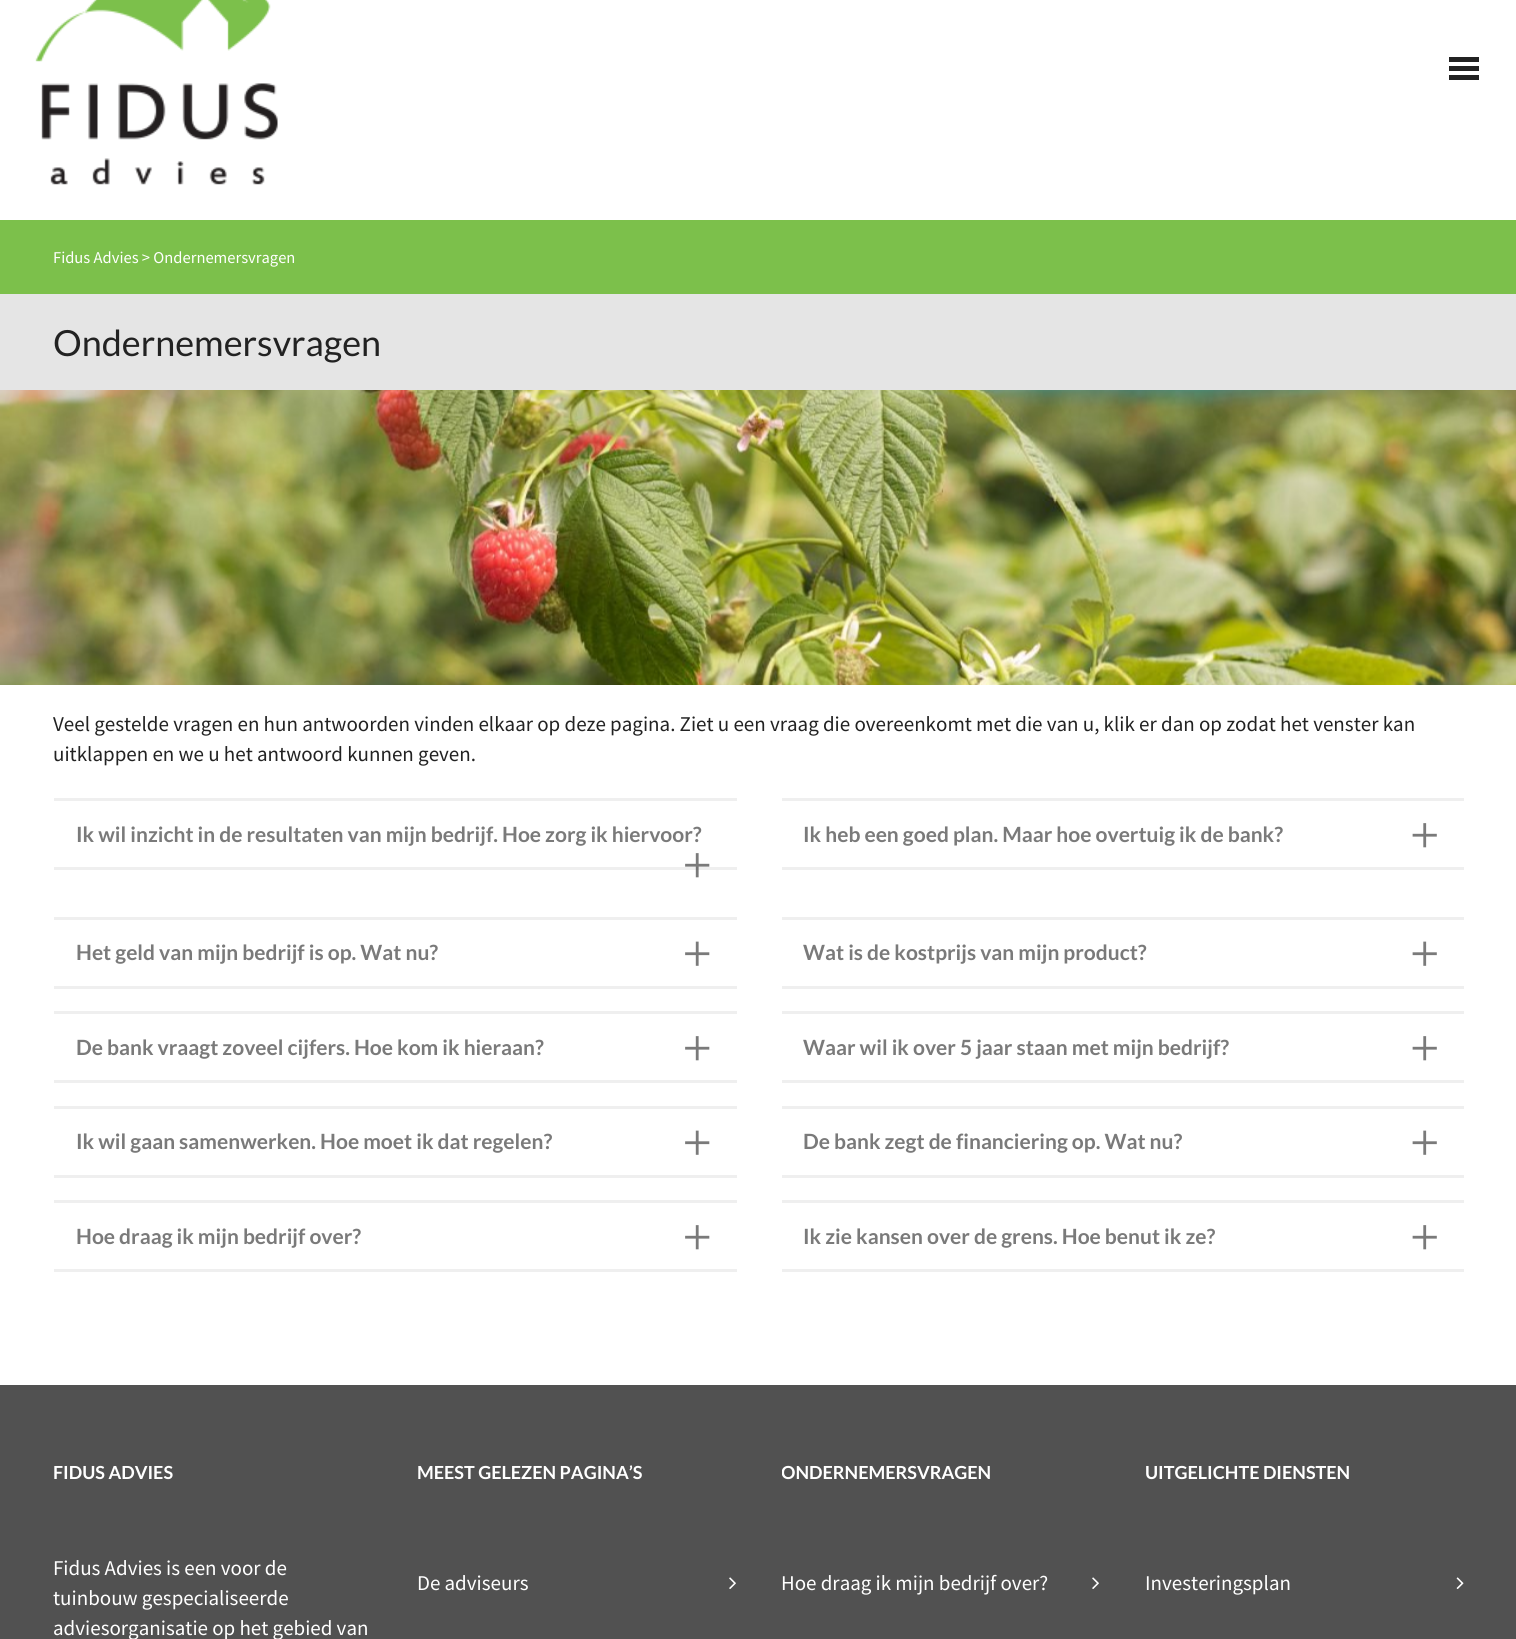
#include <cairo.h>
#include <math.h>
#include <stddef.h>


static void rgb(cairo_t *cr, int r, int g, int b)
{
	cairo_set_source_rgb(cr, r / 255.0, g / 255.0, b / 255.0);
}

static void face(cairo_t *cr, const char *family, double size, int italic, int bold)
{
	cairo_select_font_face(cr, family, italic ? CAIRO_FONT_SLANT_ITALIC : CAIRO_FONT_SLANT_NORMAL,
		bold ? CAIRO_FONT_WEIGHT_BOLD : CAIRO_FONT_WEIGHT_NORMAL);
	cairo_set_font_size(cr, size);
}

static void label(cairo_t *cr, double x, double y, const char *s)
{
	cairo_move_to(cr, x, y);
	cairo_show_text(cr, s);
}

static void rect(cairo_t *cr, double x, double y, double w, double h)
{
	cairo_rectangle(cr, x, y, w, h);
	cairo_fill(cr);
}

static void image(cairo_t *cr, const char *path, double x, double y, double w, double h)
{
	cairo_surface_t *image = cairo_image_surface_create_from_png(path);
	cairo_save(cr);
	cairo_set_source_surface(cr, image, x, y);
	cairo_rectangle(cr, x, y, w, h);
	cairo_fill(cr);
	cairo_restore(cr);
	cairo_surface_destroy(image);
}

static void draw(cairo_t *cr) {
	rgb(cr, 81, 81, 81);
	cairo_paint(cr);
	rgb(cr, 255, 255, 255);
	rect(cr, 0, 0, 1516, 220);
	image(cr, "image0.png", 35, 0, 243, 185);
	rgb(cr, 34, 34, 34);
	rect(cr, 1449, 66, 30, 5);
	rect(cr, 1449, 57, 30, 5);
	rect(cr, 1449, 75, 30, 5);
	rgb(cr, 255, 255, 255);
	rect(cr, 0, 685, 1516, 700);
	rgb(cr, 124, 192, 75);
	rect(cr, 0, 220, 1516, 74);
	face(cr, "Source Sans Pro", 16.5, 0, 0);
	rgb(cr, 255, 255, 255);
	label(cr, 53, 263, "Fidus Advies > Ondernemersvragen");
	rgb(cr, 229, 229, 229);
	rect(cr, 0, 294, 1516, 96);
	face(cr, "Lato", 36, 0, 0);
	rgb(cr, 34, 34, 34);
	label(cr, 53, 356, "Ondernemersvragen");
	image(cr, "image1.png", 0, 390, 1516, 295);
	face(cr, "Source Sans Pro", 21, 0, 0);
	label(cr, 53, 731, "Veel gestelde vragen en hun antwoorden vinden elkaar op deze pagina. Ziet u een vraag die overeenkomt met die van u, klik er dan op zodat het venster kan");
	label(cr, 53, 761, "uitklappen en we u het antwoord kunnen geven.");
	rgb(cr, 239, 239, 239);
	rect(cr, 54, 798, 683, 3);
	rect(cr, 54, 867, 683, 3);
	face(cr, "Lato", 21, 0, 1);
	rgb(cr, 122, 122, 122);
	label(cr, 76, 842, "Ik wil inzicht in de resultaten van mijn bedrijf. Hoe zorg ik hiervoor?");
	image(cr, "image2.png", 685, 853, 25, 25);
	rgb(cr, 239, 239, 239);
	rect(cr, 782, 798, 682, 3);
	rect(cr, 782, 867, 682, 3);
	rgb(cr, 122, 122, 122);
	label(cr, 803, 842, "Ik heb een goed plan. Maar hoe overtuig ik de bank?");
	image(cr, "image3.png", 1412, 823, 25, 25);
	rgb(cr, 239, 239, 239);
	rect(cr, 54, 917, 683, 3);
	rect(cr, 54, 986, 683, 3);
	rgb(cr, 122, 122, 122);
	label(cr, 76, 960, "Het geld van mijn bedrijf is op. Wat nu?");
	image(cr, "image4.png", 685, 941, 25, 25);
	rgb(cr, 239, 239, 239);
	rect(cr, 782, 917, 682, 3);
	rect(cr, 782, 986, 682, 3);
	rgb(cr, 122, 122, 122);
	label(cr, 803, 960, "Wat is de kostprijs van mijn product?");
	image(cr, "image5.png", 1412, 941, 25, 25);
	rgb(cr, 239, 239, 239);
	rect(cr, 54, 1011, 683, 3);
	rect(cr, 54, 1080, 683, 3);
	rgb(cr, 122, 122, 122);
	label(cr, 76, 1055, "De bank vraagt zoveel cijfers. Hoe kom ik hieraan?");
	image(cr, "image6.png", 685, 1036, 25, 25);
	rgb(cr, 239, 239, 239);
	rect(cr, 782, 1011, 682, 3);
	rect(cr, 782, 1080, 682, 3);
	rgb(cr, 122, 122, 122);
	label(cr, 803, 1055, "Waar wil ik over 5 jaar staan met mijn bedrijf?");
	image(cr, "image3.png", 1412, 1036, 25, 25);
	rgb(cr, 239, 239, 239);
	rect(cr, 54, 1106, 683, 3);
	rect(cr, 54, 1175, 683, 3);
	rgb(cr, 122, 122, 122);
	label(cr, 76, 1149, "Ik wil gaan samenwerken. Hoe moet ik dat regelen?");
	image(cr, "image4.png", 685, 1130, 25, 25);
	rgb(cr, 239, 239, 239);
	rect(cr, 782, 1106, 682, 3);
	rect(cr, 782, 1175, 682, 3);
	rgb(cr, 122, 122, 122);
	label(cr, 803, 1149, "De bank zegt de financiering op. Wat nu?");
	image(cr, "image5.png", 1412, 1130, 25, 25);
	rgb(cr, 239, 239, 239);
	rect(cr, 54, 1200, 683, 3);
	rect(cr, 54, 1269, 683, 3);
	rgb(cr, 122, 122, 122);
	label(cr, 76, 1244, "Hoe draag ik mijn bedrijf over?");
	image(cr, "image6.png", 685, 1225, 25, 25);
	rgb(cr, 239, 239, 239);
	rect(cr, 782, 1200, 682, 3);
	rect(cr, 782, 1269, 682, 3);
	rgb(cr, 122, 122, 122);
	label(cr, 803, 1244, "Ik zie kansen over de grens. Hoe benut ik ze?");
	image(cr, "image3.png", 1412, 1225, 25, 25);
	face(cr, "Lato", 18, 0, 1);
	rgb(cr, 255, 255, 255);
	label(cr, 53, 1479, "FIDUS ADVIES");
	face(cr, "Source Sans Pro", 21, 0, 0);
	label(cr, 53, 1575, "Fidus Advies is een voor de");
	label(cr, 53, 1605, "tuinbouw gespecialiseerde");
	label(cr, 53, 1635, "adviesorganisatie op het gebied van");
	face(cr, "Lato", 18, 0, 1);
	label(cr, 417, 1479, "MEEST GELEZEN PAGINA’S");
	face(cr, "Source Sans Pro", 21, 0, 0);
	label(cr, 417, 1590, "De adviseurs");
	image(cr, "image7.png", 729, 1577, 7, 12);
	cairo_save(cr);
	cairo_rectangle(cr, 782, 1446, 318, 69);
	cairo_clip(cr);
	face(cr, "Lato", 18, 0, 1);
	label(cr, 781, 1479, "ONDERNEMERSVRAGEN");
	cairo_restore(cr);
	label(cr, 781, 1590, "Hoe draag ik mijn bedrijf over?");
	image(cr, "image7.png", 1092, 1577, 7, 12);
	face(cr, "Lato", 18, 0, 1);
	label(cr, 1145, 1479, "UITGELICHTE DIENSTEN");
	face(cr, "Source Sans Pro", 21, 0, 0);
	label(cr, 1145, 1590, "Investeringsplan");
	image(cr, "image8.png", 1456, 1577, 8, 12);
}

int main(void) {
	cairo_surface_t *surface = cairo_image_surface_create(CAIRO_FORMAT_RGB24, 1516, 1639);
	cairo_t *cr = cairo_create(surface);
	cairo_font_options_t *options = cairo_font_options_create();
	cairo_font_options_set_hint_metrics(options, CAIRO_HINT_METRICS_OFF);
	cairo_font_options_set_hint_style(options, CAIRO_HINT_STYLE_NONE);
	cairo_set_font_options(cr, options);
	cairo_set_miter_limit(cr, 4);
	draw(cr);
	cairo_surface_write_to_png(surface, "render.png");
	cairo_font_options_destroy(options);
	cairo_destroy(cr);
	cairo_surface_destroy(surface);
	return 0;
}
